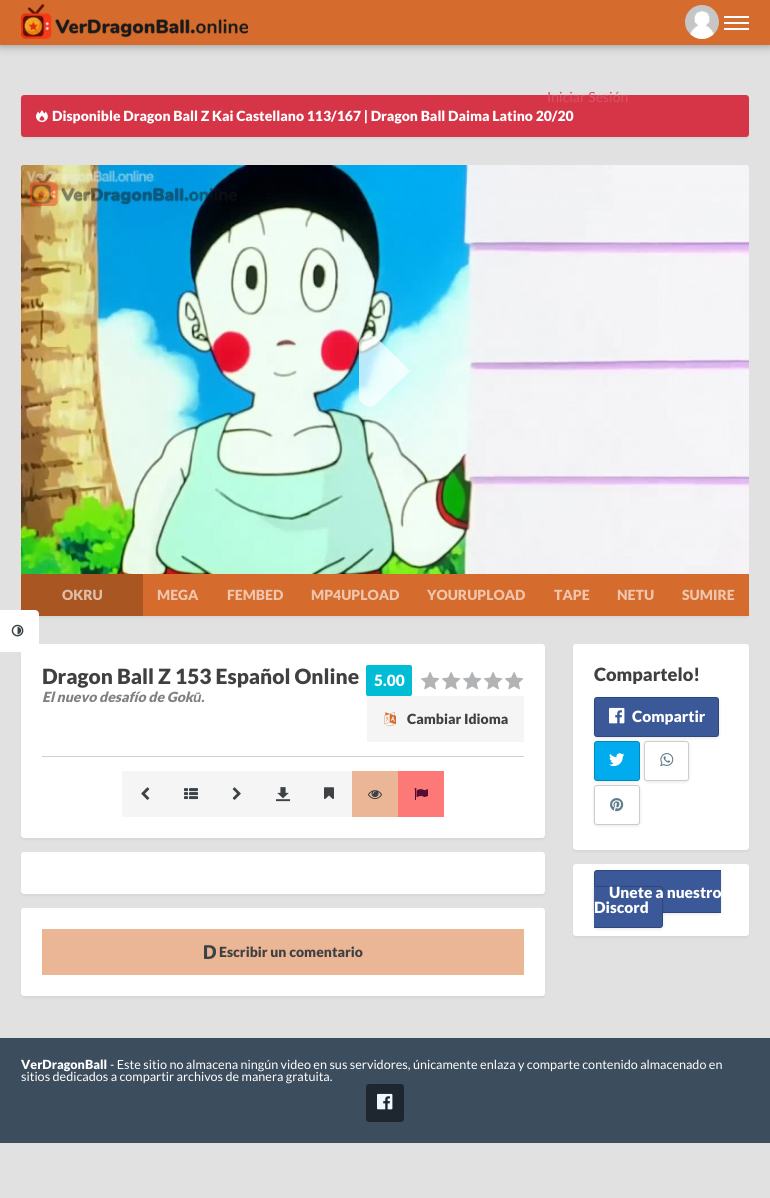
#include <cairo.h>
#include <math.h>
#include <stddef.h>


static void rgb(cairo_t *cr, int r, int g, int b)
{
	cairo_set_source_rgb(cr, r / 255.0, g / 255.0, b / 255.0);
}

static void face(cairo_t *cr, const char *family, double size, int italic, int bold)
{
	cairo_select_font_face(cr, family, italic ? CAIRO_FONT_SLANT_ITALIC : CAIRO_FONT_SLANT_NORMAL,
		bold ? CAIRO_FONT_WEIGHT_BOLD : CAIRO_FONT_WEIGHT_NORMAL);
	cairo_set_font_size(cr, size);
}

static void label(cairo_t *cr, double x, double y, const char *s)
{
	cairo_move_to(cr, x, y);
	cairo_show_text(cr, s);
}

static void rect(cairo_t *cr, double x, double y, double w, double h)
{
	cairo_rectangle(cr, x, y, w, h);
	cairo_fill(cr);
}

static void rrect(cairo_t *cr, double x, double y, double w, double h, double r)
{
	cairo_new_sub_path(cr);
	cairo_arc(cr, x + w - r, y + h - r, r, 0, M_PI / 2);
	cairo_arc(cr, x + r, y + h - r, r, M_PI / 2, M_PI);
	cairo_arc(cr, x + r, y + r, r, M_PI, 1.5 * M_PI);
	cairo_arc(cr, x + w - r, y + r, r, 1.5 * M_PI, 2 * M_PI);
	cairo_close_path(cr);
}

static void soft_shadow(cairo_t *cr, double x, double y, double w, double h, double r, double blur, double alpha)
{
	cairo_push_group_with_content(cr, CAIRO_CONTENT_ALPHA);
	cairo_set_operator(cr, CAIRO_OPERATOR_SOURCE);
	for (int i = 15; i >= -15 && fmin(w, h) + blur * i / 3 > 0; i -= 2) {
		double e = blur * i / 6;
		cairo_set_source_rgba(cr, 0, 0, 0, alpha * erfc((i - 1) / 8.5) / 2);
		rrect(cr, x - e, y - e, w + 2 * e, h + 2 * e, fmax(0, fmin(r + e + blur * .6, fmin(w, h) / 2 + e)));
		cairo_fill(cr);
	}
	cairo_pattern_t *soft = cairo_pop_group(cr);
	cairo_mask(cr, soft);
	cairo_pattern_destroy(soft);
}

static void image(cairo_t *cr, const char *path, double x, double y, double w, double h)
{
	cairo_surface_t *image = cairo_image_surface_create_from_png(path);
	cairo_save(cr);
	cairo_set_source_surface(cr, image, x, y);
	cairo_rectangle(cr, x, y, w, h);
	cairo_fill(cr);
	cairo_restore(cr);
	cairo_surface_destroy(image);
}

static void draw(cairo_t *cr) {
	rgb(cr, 225, 225, 225);
	cairo_paint(cr);
	image(cr, "image4.png", 21, 165, 728, 409);
	rgb(cr, 0, 0, 0);
	soft_shadow(cr, 21, 576, 728, 42, 3, 1, 0.05);
	rgb(cr, 170, 86, 35);
	rect(cr, 21, 574, 122, 42);
	rgb(cr, 0, 0, 0);
	soft_shadow(cr, 21, 646, 524, 194, 3, 1, 0.05);
	rgb(cr, 255, 255, 255);
	rrect(cr, 21, 644, 524, 194, 3);
	cairo_fill(cr);
	cairo_new_path(cr);
	cairo_move_to(cr, -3, 610);
	cairo_line_to(cr, 35, 610);
	cairo_curve_to(cr, 37, 610, 39, 612, 39, 614);
	cairo_line_to(cr, 39, 652);
	cairo_line_to(cr, 1, 652);
	cairo_curve_to(cr, -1, 652, -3, 650, -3, 648);
	cairo_close_path(cr);
	cairo_fill(cr);
	image(cr, "image0.png", 11, 624, 13, 13);
	rgb(cr, 0, 0, 0);
	soft_shadow(cr, 0, 0, 770, 45, 0, 5, 0.4);
	rgb(cr, 213, 107, 44);
	rect(cr, 0, 0, 770, 45);
	rgb(cr, 255, 255, 255);
	rect(cr, 724, 22, 25, 2);
	rect(cr, 724, 16, 25, 2);
	rect(cr, 724, 28, 25, 2);
	image(cr, "image1.png", 21, 4, 227, 35);
	image(cr, "image2.png", 685, 5, 34, 34);
	rgb(cr, 0, 0, 0);
	soft_shadow(cr, 21, 97, 728, 42, 3, 1, 0.05);
	rgb(cr, 214, 52, 71);
	rrect(cr, 21, 95, 728, 42, 3);
	cairo_fill(cr);
	face(cr, "Lato", 14, 0, 0);
	rgb(cr, 216, 83, 99);
	label(cr, 547, 102, "Iniciar Sesión");
	image(cr, "image3.png", 36, 110, 12, 12);
	face(cr, "Lato Black", 14, 0, 0);
	rgb(cr, 255, 255, 255);
	label(cr, 52, 121, "Disponible Dragon Ball Z Kai Castellano 113/167 | Dragon Ball Daima Latino 20/20");
	cairo_set_source_rgba(cr, 1, 1, 1, 0.7);
	cairo_new_path(cr);
	cairo_move_to(cr, 376, 404);
	cairo_curve_to(cr, 371, 409, 361, 406, 359, 398);
	cairo_line_to(cr, 359, 354);
	cairo_curve_to(cr, 359, 350, 358, 344, 360, 340);
	cairo_curve_to(cr, 361, 338, 363, 337, 365, 336);
	cairo_curve_to(cr, 373, 333, 377, 339, 382, 343);
	cairo_line_to(cr, 410, 371);
	cairo_close_path(cr);
	cairo_fill(cr);
	rgb(cr, 213, 107, 44);
	rect(cr, 143, 574, 606, 42);
	rgb(cr, 222, 189, 169);
	label(cr, 62, 600, "OKRU");
	rgb(cr, 239, 197, 173);
	label(cr, 157, 600, "MEGA");
	label(cr, 227, 600, "FEMBED");
	label(cr, 311, 600, "MP4UPLOAD");
	label(cr, 427, 600, "YOURUPLOAD");
	label(cr, 554, 600, "TAPE");
	label(cr, 617, 600, "NETU");
	label(cr, 682, 600, "SUMIRE");
	rgb(cr, 201, 209, 211);
	rect(cr, 42, 756, 482, 1);
	face(cr, "Lato Black", 21, 0, 0);
	rgb(cr, 64, 64, 64);
	label(cr, 42, 684, "Dragon Ball Z 153 Español Online");
	face(cr, "Lato Black", 14, 1, 0);
	rgb(cr, 128, 128, 128);
	label(cr, 42, 702, "El nuevo desafío de Gok");
	face(cr, "Liberation Sans", 14, 1, 1);
	label(cr, 193, 702, "ū");
	face(cr, "Lato Black", 14, 1, 0);
	label(cr, 201, 702, ".");
	rgb(cr, 0, 188, 212);
	rrect(cr, 366, 665, 46, 31, 2);
	cairo_fill(cr);
	face(cr, "Lato Black", 15.5, 0, 0);
	rgb(cr, 255, 255, 255);
	label(cr, 374, 686, "5.00");
	image(cr, "image5.png", 421, 672, 19, 18);
	image(cr, "image5.png", 442, 672, 19, 18);
	image(cr, "image5.png", 463, 672, 19, 18);
	image(cr, "image5.png", 484, 672, 19, 18);
	image(cr, "image5.png", 505, 672, 19, 18);
	rgb(cr, 245, 245, 245);
	rect(cr, 367, 696, 157, 46);
	image(cr, "image6.png", 384, 712, 12, 15);
	face(cr, "Lato Black", 14, 0, 0);
	rgb(cr, 64, 64, 64);
	label(cr, 407, 724, "Cambiar Idioma");
	rgb(cr, 245, 245, 245);
	rect(cr, 122, 771, 230, 46);
	image(cr, "image7.png", 141, 787, 9, 13);
	image(cr, "image8.png", 324, 787, 10, 12);
	rgb(cr, 234, 182, 150);
	rect(cr, 352, 771, 46, 46);
	image(cr, "image9.png", 368, 790, 14, 10);
	rgb(cr, 252, 121, 120);
	rect(cr, 398, 771, 46, 46);
	image(cr, "image10.png", 414, 788, 14, 13);
	image(cr, "image11.png", 184, 788, 14, 12);
	image(cr, "image12.png", 232, 787, 9, 13);
	image(cr, "image13.png", 276, 787, 14, 15);
	rgb(cr, 0, 0, 0);
	soft_shadow(cr, 21, 854, 524, 42, 3, 1, 0.05);
	rgb(cr, 255, 255, 255);
	rrect(cr, 21, 852, 524, 42, 3);
	cairo_fill(cr);
	rgb(cr, 0, 0, 0);
	soft_shadow(cr, 21, 910, 524, 88, 3, 1, 0.05);
	rgb(cr, 255, 255, 255);
	rrect(cr, 21, 908, 524, 88, 3);
	cairo_fill(cr);
	rgb(cr, 234, 182, 150);
	rect(cr, 42, 929, 482, 46);
	image(cr, "image14.png", 204, 945, 13, 15);
	rgb(cr, 64, 64, 64);
	label(cr, 219, 957, "Escribir un comentario");
	rgb(cr, 0, 0, 0);
	soft_shadow(cr, 573, 646, 176, 206, 3, 1, 0.05);
	rgb(cr, 255, 255, 255);
	rrect(cr, 573, 644, 176, 206, 3);
	cairo_fill(cr);
	face(cr, "Lato Black", 18.25, 0, 0);
	rgb(cr, 64, 64, 64);
	label(cr, 594, 681, "Compartelo!");
	rgb(cr, 0, 0, 0);
	soft_shadow(cr, 594, 698, 125, 40, 3, 1.5, 0.1);
	rgb(cr, 59, 89, 152);
	rrect(cr, 594, 697, 125, 40, 3);
	cairo_fill(cr);
	rrect(cr, 594.5, 697.5, 124, 39, 2.5);
	cairo_set_source_rgba(cr, 0, 0, 0, 0.2);
	cairo_set_line_width(cr, 1);
	cairo_stroke(cr);
	image(cr, "image15.png", 609, 707, 16, 17);
	face(cr, "Lato Black", 15.5, 0, 0);
	rgb(cr, 255, 255, 255);
	label(cr, 632, 722, "Compartir");
	rgb(cr, 0, 0, 0);
	soft_shadow(cr, 594, 742, 46, 40, 3, 1.5, 0.1);
	rgb(cr, 0, 172, 237);
	rrect(cr, 594, 741, 46, 40, 3);
	cairo_fill(cr);
	rrect(cr, 594.5, 741.5, 45, 39, 2.5);
	cairo_set_source_rgba(cr, 0, 0, 0, 0.2);
	cairo_stroke(cr);
	image(cr, "image16.png", 609, 753, 16, 14);
	cairo_save(cr);
	cairo_set_fill_rule(cr, CAIRO_FILL_RULE_EVEN_ODD);
	cairo_new_path(cr);
	cairo_move_to(cr, 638, 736);
	cairo_line_to(cr, 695, 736);
	cairo_line_to(cr, 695, 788);
	cairo_line_to(cr, 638, 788);
	cairo_close_path(cr);
	cairo_move_to(cr, 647, 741);
	cairo_line_to(cr, 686, 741);
	cairo_curve_to(cr, 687.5, 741, 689, 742.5, 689, 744);
	cairo_line_to(cr, 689, 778);
	cairo_curve_to(cr, 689, 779.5, 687.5, 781, 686, 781);
	cairo_line_to(cr, 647, 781);
	cairo_curve_to(cr, 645.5, 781, 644, 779.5, 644, 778);
	cairo_line_to(cr, 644, 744);
	cairo_curve_to(cr, 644, 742.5, 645.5, 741, 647, 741);
	cairo_close_path(cr);
	cairo_clip(cr);
	rgb(cr, 0, 0, 0);
	soft_shadow(cr, 644, 742, 45, 40, 3, 1.5, 0.1);
	cairo_restore(cr);
	rrect(cr, 644.5, 741.5, 44, 39, 2.5);
	cairo_stroke(cr);
	image(cr, "image17.png", 660, 753, 14, 14);
	cairo_save(cr);
	cairo_set_fill_rule(cr, CAIRO_FILL_RULE_EVEN_ODD);
	cairo_new_path(cr);
	cairo_move_to(cr, 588, 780);
	cairo_line_to(cr, 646, 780);
	cairo_line_to(cr, 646, 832);
	cairo_line_to(cr, 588, 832);
	cairo_close_path(cr);
	cairo_move_to(cr, 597, 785);
	cairo_line_to(cr, 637, 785);
	cairo_curve_to(cr, 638.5, 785, 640, 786.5, 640, 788);
	cairo_line_to(cr, 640, 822);
	cairo_curve_to(cr, 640, 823.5, 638.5, 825, 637, 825);
	cairo_line_to(cr, 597, 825);
	cairo_curve_to(cr, 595.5, 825, 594, 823.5, 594, 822);
	cairo_line_to(cr, 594, 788);
	cairo_curve_to(cr, 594, 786.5, 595.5, 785, 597, 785);
	cairo_close_path(cr);
	cairo_clip(cr);
	rgb(cr, 0, 0, 0);
	soft_shadow(cr, 594, 786, 46, 40, 3, 1.5, 0.1);
	cairo_restore(cr);
	rrect(cr, 594.5, 785.5, 45, 39, 2.5);
	cairo_stroke(cr);
	image(cr, "image18.png", 610, 798, 14, 14);
	rgb(cr, 0, 0, 0);
	soft_shadow(cr, 573, 866, 176, 72, 3, 1, 0.05);
	rgb(cr, 255, 255, 255);
	rrect(cr, 573, 864, 176, 72, 3);
	cairo_fill(cr);
	rgb(cr, 0, 0, 0);
	soft_shadow(cr, 594, 871, 127, 43, 3, 1.5, 0.1);
	rgb(cr, 59, 89, 152);
	cairo_new_path(cr);
	cairo_move_to(cr, 597, 870);
	cairo_line_to(cr, 721, 870);
	cairo_line_to(cr, 721, 913);
	cairo_line_to(cr, 597, 913);
	cairo_curve_to(cr, 595.5, 913, 594, 911.5, 594, 910);
	cairo_line_to(cr, 594, 873);
	cairo_curve_to(cr, 594, 871.5, 595.5, 870, 597, 870);
	cairo_close_path(cr);
	cairo_fill(cr);
	cairo_set_source_rgba(cr, 0, 0, 0, 0.2);
	cairo_set_fill_rule(cr, CAIRO_FILL_RULE_EVEN_ODD);
	cairo_new_path(cr);
	cairo_move_to(cr, 597, 870);
	cairo_line_to(cr, 721, 870);
	cairo_line_to(cr, 721, 913);
	cairo_line_to(cr, 597, 913);
	cairo_curve_to(cr, 595, 913, 594, 912, 594, 910);
	cairo_line_to(cr, 594, 873);
	cairo_curve_to(cr, 594, 871, 595, 870, 597, 870);
	cairo_close_path(cr);
	cairo_move_to(cr, 597, 871);
	cairo_line_to(cr, 721, 871);
	cairo_line_to(cr, 721, 912);
	cairo_line_to(cr, 597, 912);
	cairo_curve_to(cr, 596, 912, 595, 911, 595, 910);
	cairo_line_to(cr, 595, 873);
	cairo_curve_to(cr, 595, 872, 596, 871, 597, 871);
	cairo_close_path(cr);
	cairo_fill(cr);
	rgb(cr, 0, 0, 0);
	soft_shadow(cr, 594, 887, 69, 42, 3, 1.5, 0.1);
	rgb(cr, 59, 89, 152);
	cairo_new_path(cr);
	cairo_move_to(cr, 594, 886);
	cairo_line_to(cr, 660, 886);
	cairo_curve_to(cr, 661.5, 886, 663, 887.5, 663, 889);
	cairo_line_to(cr, 663, 925);
	cairo_curve_to(cr, 663, 926.5, 661.5, 928, 660, 928);
	cairo_line_to(cr, 594, 928);
	cairo_close_path(cr);
	cairo_fill(cr);
	cairo_set_source_rgba(cr, 0, 0, 0, 0.2);
	cairo_new_path(cr);
	cairo_move_to(cr, 594, 886);
	cairo_line_to(cr, 660, 886);
	cairo_curve_to(cr, 662, 886, 663, 887, 663, 889);
	cairo_line_to(cr, 663, 925);
	cairo_curve_to(cr, 663, 927, 662, 928, 660, 928);
	cairo_line_to(cr, 594, 928);
	cairo_close_path(cr);
	cairo_move_to(cr, 594, 887);
	cairo_line_to(cr, 660, 887);
	cairo_curve_to(cr, 661, 887, 662, 888, 662, 889);
	cairo_line_to(cr, 662, 925);
	cairo_curve_to(cr, 662, 926, 661, 927, 660, 927);
	cairo_line_to(cr, 594, 927);
	cairo_close_path(cr);
	cairo_fill(cr);
	rgb(cr, 255, 255, 255);
	label(cr, 609, 898, "Unete a nuestro");
	label(cr, 594, 913, "Discord");
	rgb(cr, 60, 77, 94);
	rect(cr, 0, 1038, 770, 105);
	face(cr, "Lato Black", 12.6, 0, 0);
	rgb(cr, 255, 255, 255);
	label(cr, 21, 1069, "VerDragonBall");
	face(cr, "Lato", 12.6, 0, 0);
	label(cr, 110, 1069, "- Este sitio no almacena ningún video en sus servidores, únicamente enlaza y comparte contenido almacenado en");
	label(cr, 21, 1081, "sitios dedicados a compartir archivos de manera gratuita.");
	rgb(cr, 30, 39, 47);
	rrect(cr, 366, 1084, 38, 38, 3);
	cairo_fill(cr);
	image(cr, "image19.png", 377, 1093, 16, 17);
}

int main(void) {
	cairo_surface_t *surface = cairo_image_surface_create(CAIRO_FORMAT_RGB24, 770, 1198);
	cairo_t *cr = cairo_create(surface);
	cairo_font_options_t *options = cairo_font_options_create();
	cairo_font_options_set_hint_metrics(options, CAIRO_HINT_METRICS_OFF);
	cairo_font_options_set_hint_style(options, CAIRO_HINT_STYLE_NONE);
	cairo_set_font_options(cr, options);
	cairo_set_miter_limit(cr, 4);
	draw(cr);
	cairo_surface_write_to_png(surface, "render.png");
	cairo_font_options_destroy(options);
	cairo_destroy(cr);
	cairo_surface_destroy(surface);
	return 0;
}
